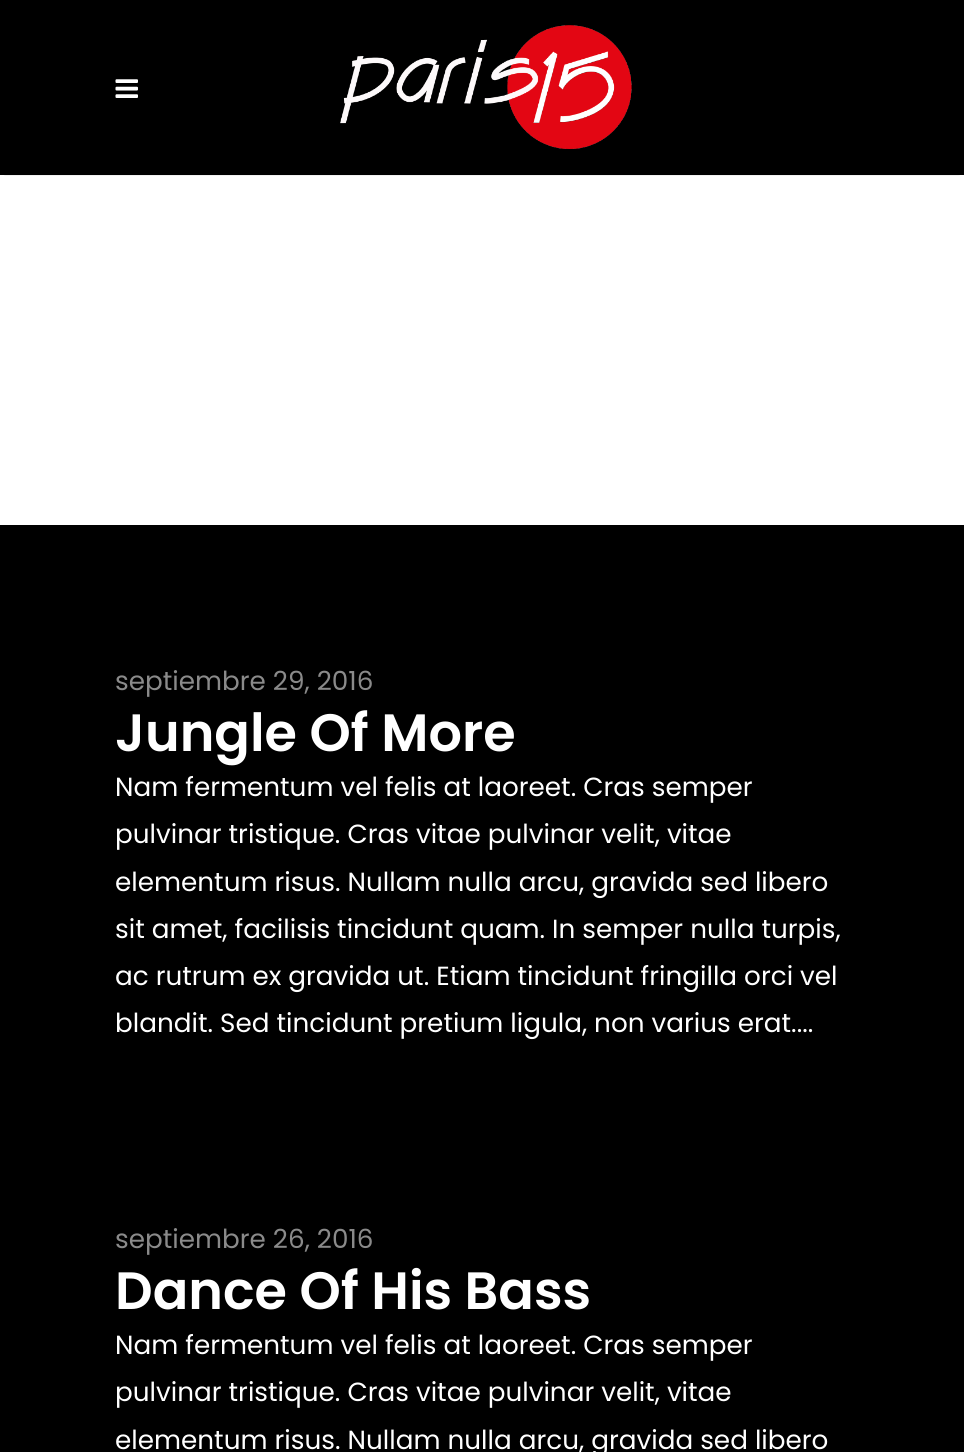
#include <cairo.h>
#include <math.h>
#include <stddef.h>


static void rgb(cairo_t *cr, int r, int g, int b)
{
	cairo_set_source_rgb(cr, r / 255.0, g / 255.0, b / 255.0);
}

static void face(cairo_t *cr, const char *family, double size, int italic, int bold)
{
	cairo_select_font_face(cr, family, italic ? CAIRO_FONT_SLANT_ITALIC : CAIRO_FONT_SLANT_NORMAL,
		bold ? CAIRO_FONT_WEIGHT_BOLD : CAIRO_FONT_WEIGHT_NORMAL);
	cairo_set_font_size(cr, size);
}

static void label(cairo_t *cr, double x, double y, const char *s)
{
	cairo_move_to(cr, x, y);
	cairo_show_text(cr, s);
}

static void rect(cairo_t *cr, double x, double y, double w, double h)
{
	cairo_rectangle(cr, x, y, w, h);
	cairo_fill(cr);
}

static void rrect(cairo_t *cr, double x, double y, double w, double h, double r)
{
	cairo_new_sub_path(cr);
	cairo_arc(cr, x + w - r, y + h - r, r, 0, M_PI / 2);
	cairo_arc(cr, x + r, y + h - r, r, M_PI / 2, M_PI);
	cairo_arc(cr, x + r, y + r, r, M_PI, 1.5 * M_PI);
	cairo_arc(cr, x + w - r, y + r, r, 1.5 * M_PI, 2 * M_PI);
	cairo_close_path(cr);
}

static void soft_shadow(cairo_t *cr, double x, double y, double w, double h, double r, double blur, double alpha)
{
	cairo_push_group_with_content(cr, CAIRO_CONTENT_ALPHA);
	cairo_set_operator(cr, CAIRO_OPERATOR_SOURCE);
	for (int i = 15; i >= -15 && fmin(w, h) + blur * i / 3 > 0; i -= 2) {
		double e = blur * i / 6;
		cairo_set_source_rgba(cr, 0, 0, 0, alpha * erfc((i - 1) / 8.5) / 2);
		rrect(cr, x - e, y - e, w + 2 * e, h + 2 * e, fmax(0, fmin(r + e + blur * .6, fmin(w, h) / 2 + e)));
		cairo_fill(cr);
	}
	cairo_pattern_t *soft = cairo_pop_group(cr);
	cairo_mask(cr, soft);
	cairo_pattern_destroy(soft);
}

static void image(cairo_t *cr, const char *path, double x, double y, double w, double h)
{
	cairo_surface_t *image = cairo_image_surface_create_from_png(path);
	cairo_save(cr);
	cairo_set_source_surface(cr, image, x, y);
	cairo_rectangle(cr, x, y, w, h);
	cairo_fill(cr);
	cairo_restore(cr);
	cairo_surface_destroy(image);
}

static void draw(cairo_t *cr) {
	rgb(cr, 0, 0, 0);
	cairo_paint(cr);
	rgb(cr, 255, 255, 255);
	rect(cr, 0, 175, 964, 350);
	cairo_save(cr);
	cairo_rectangle(cr, 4, 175, 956, 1);
	cairo_clip(cr);
	rgb(cr, 0, 0, 0);
	soft_shadow(cr, 5, 9, 954, 164, 0, 2, 0.5);
	cairo_restore(cr);
	image(cr, "image0.png", 115, 79, 23, 19);
	image(cr, "image1.png", 340, 25, 292, 124);
	face(cr, "Poppins", 26.25, 0, 0);
	rgb(cr, 138, 138, 138);
	label(cr, 115, 690, "septiembre 29, 2016");
	face(cr, "Poppins SemiBold", 52.5, 0, 0);
	rgb(cr, 255, 255, 255);
	label(cr, 115, 751, "Jungle Of More");
	face(cr, "Poppins", 26.25, 0, 0);
	label(cr, 115, 796, "Nam fermentum vel felis at laoreet. Cras semper");
	label(cr, 115, 843, "pulvinar tristique. Cras vitae pulvinar velit, vitae");
	label(cr, 115, 891, "elementum risus. Nullam nulla arcu, gravida sed libero");
	label(cr, 115, 938, "sit amet, facilisis tincidunt quam. In semper nulla turpis,");
	label(cr, 115, 985, "ac rutrum ex gravida ut. Etiam tincidunt fringilla orci vel");
	label(cr, 115, 1032, "blandit. Sed tincidunt pretium ligula, non varius erat....");
	rgb(cr, 138, 138, 138);
	label(cr, 115, 1248, "septiembre 26, 2016");
	face(cr, "Poppins SemiBold", 52.5, 0, 0);
	rgb(cr, 255, 255, 255);
	label(cr, 115, 1309, "Dance Of His Bass");
	face(cr, "Poppins", 26.25, 0, 0);
	label(cr, 115, 1354, "Nam fermentum vel felis at laoreet. Cras semper");
	label(cr, 115, 1401, "pulvinar tristique. Cras vitae pulvinar velit, vitae");
	label(cr, 115, 1449, "elementum risus. Nullam nulla arcu, gravida sed libero");
}

int main(void) {
	cairo_surface_t *surface = cairo_image_surface_create(CAIRO_FORMAT_RGB24, 964, 1452);
	cairo_t *cr = cairo_create(surface);
	cairo_font_options_t *options = cairo_font_options_create();
	cairo_font_options_set_hint_metrics(options, CAIRO_HINT_METRICS_OFF);
	cairo_font_options_set_hint_style(options, CAIRO_HINT_STYLE_NONE);
	cairo_set_font_options(cr, options);
	cairo_set_miter_limit(cr, 4);
	draw(cr);
	cairo_surface_write_to_png(surface, "render.png");
	cairo_font_options_destroy(options);
	cairo_destroy(cr);
	cairo_surface_destroy(surface);
	return 0;
}
